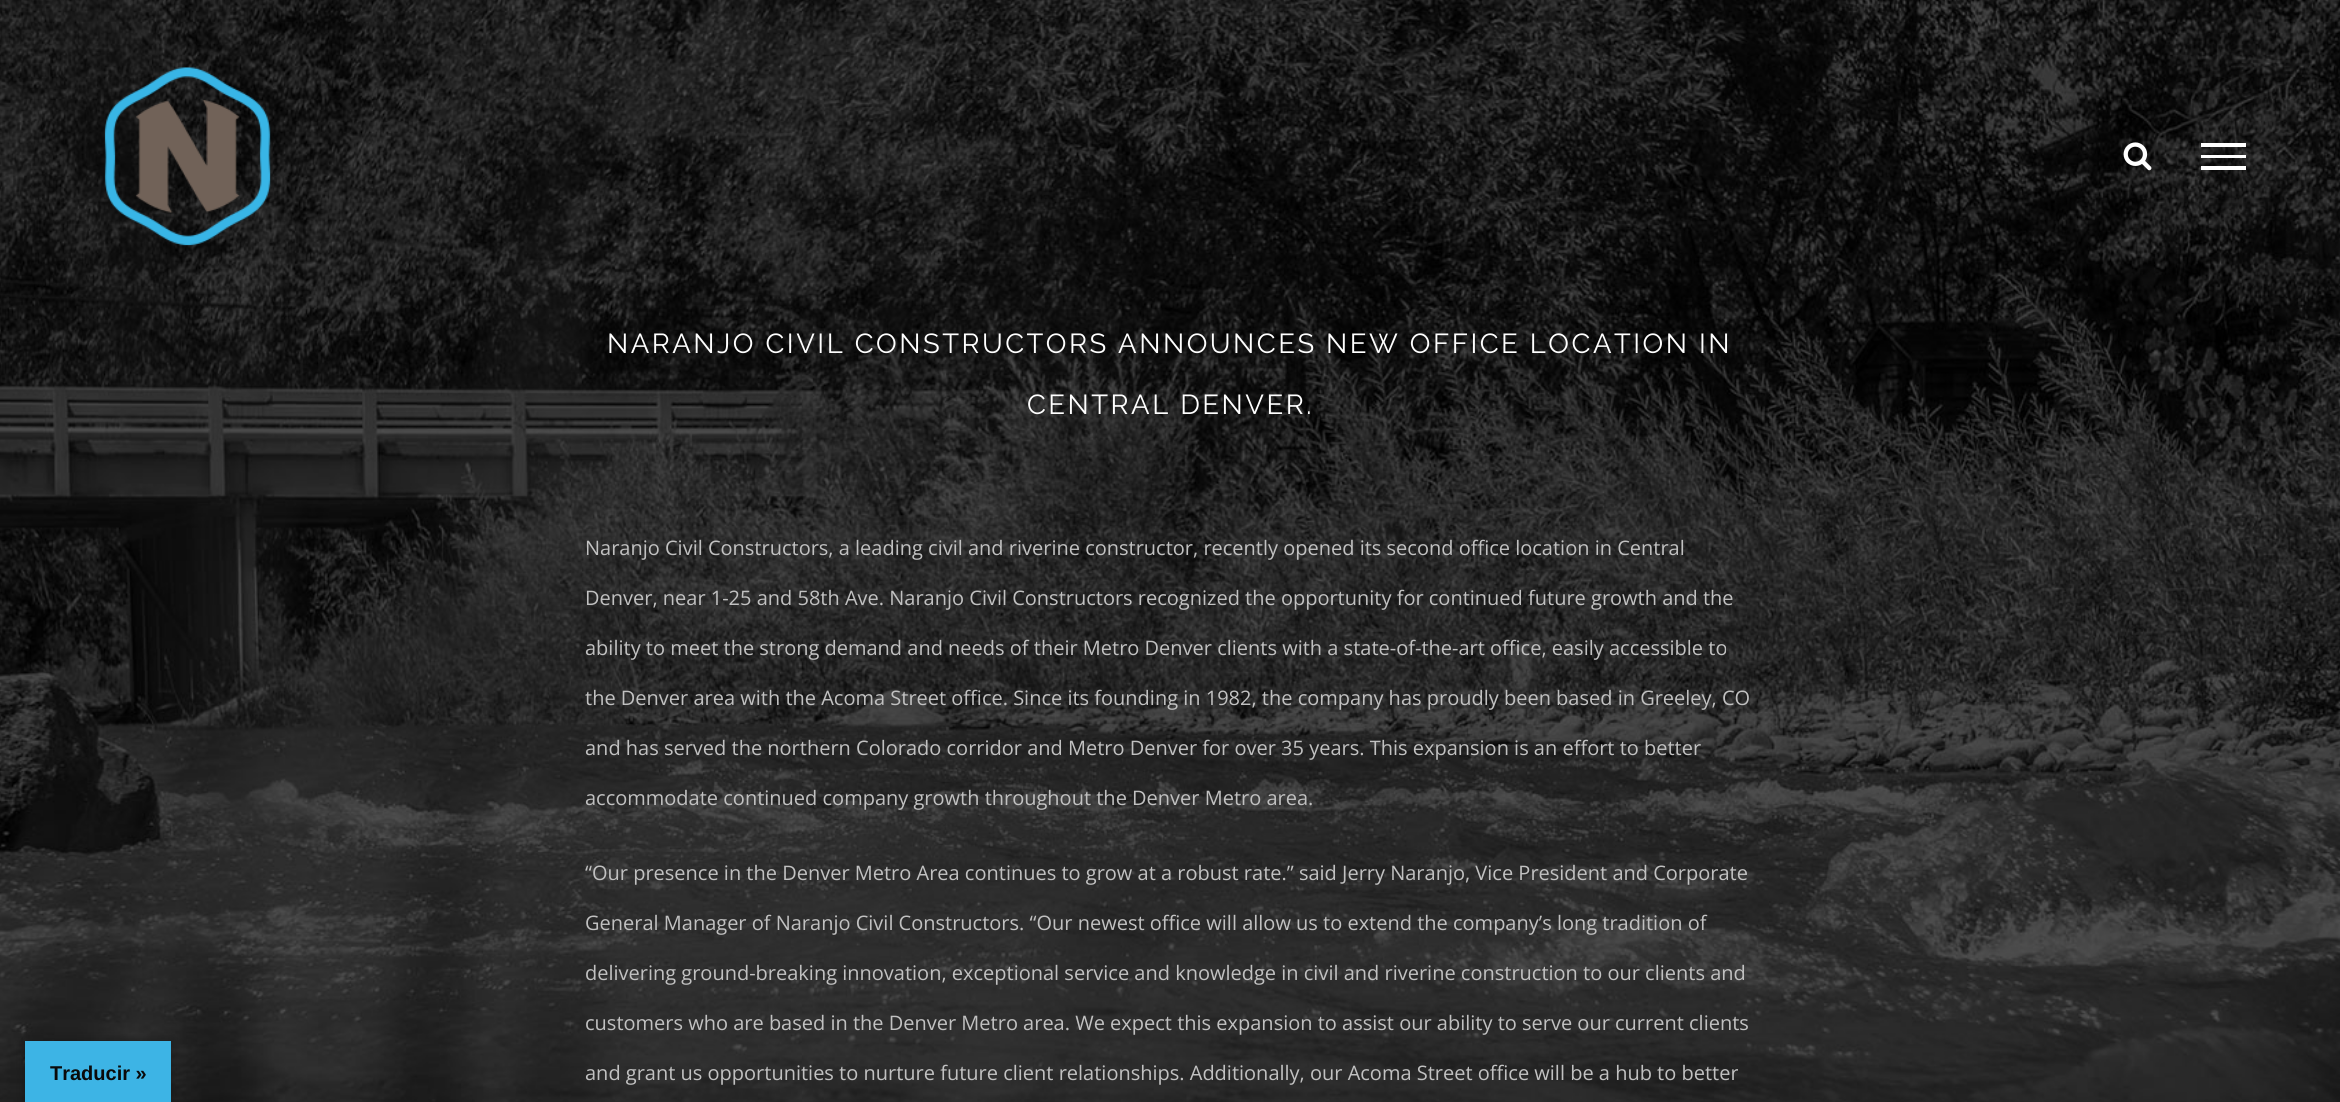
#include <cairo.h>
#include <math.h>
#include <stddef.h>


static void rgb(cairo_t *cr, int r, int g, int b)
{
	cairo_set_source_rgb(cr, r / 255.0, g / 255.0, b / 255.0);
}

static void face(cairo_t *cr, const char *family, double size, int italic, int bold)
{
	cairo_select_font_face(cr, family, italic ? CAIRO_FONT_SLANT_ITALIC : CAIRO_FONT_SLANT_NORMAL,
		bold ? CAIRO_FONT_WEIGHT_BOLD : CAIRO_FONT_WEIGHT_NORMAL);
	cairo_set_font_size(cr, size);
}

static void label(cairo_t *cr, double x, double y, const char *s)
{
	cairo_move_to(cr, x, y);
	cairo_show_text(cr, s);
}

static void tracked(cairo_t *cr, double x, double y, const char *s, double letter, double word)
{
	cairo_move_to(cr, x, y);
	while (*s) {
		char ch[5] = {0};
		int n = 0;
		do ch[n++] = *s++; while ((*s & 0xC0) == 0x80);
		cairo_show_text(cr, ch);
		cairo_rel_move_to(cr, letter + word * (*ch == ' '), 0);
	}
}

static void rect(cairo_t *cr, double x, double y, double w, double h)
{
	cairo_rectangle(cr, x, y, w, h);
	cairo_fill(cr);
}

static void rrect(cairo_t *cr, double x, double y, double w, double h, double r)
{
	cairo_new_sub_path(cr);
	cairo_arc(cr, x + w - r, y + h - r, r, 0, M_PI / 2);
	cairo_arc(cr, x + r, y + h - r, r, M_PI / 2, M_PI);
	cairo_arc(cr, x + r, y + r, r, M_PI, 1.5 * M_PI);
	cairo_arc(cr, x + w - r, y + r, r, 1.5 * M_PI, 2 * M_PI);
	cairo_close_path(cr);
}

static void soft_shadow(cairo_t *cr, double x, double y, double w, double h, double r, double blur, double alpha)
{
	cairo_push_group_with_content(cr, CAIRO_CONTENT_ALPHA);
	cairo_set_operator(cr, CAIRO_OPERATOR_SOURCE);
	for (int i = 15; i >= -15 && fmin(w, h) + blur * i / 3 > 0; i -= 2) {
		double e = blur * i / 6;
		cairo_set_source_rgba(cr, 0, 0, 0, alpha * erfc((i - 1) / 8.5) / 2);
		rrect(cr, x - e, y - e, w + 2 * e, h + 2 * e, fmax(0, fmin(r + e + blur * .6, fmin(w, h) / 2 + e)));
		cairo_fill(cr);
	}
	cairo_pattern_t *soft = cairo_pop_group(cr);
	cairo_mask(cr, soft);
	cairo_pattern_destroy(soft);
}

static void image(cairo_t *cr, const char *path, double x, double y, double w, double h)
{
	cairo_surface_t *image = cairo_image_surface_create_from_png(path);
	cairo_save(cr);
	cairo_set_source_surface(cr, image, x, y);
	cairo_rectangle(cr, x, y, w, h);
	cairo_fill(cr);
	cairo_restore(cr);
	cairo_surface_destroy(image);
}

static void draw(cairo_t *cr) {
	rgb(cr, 255, 255, 255);
	cairo_paint(cr);
	image(cr, "image2.png", 0, 0, 2340, 1102);
	rgb(cr, 0, 0, 0);
	soft_shadow(cr, 25, 1041, 146, 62, 0, 5.5, 0.3);
	rgb(cr, 61, 180, 229);
	rect(cr, 25, 1041, 146, 61);
	face(cr, "Liberation Sans", 20, 0, 1);
	rgb(cr, 10, 10, 10);
	label(cr, 50, 1080, "Traducir »");
	image(cr, "image0.png", 104, 67, 167, 179);
	image(cr, "image1.png", 2123, 142, 29, 29);
	rgb(cr, 255, 255, 255);
	rect(cr, 2201, 143, 45, 4);
	rect(cr, 2201, 155, 45, 3);
	rect(cr, 2201, 166, 45, 4);
	face(cr, "Raleway", 27.5, 0, 0);
	tracked(cr, 607, 353, "NARANJO CIVIL CONSTRUCTORS ANNOUNCES NEW OFFICE LOCATION IN", 2.5, 0);
	tracked(cr, 1027, 414, "CENTRAL DENVER.", 2.5, 0);
	face(cr, "Open Sans", 20, 0, 0);
	rgb(cr, 193, 193, 193);
	label(cr, 585, 555, "Naranjo Civil Constructors, a leading civil and riverine constructor, recently opened its second office location in Central");
	label(cr, 585, 605, "Denver, near 1-25 and 58th Ave. Naranjo Civil Constructors recognized the opportunity for continued future growth and the");
	label(cr, 585, 655, "ability to meet the strong demand and needs of their Metro Denver clients with a state-of-the-art office, easily accessible to");
	label(cr, 585, 705, "the Denver area with the Acoma Street office. Since its founding in 1982, the company has proudly been based in Greeley, CO");
	label(cr, 585, 755, "and has served the northern Colorado corridor and Metro Denver for over 35 years. This expansion is an effort to better");
	label(cr, 585, 805, "accommodate continued company growth throughout the Denver Metro area.");
	label(cr, 585, 880, "“Our presence in the Denver Metro Area continues to grow at a robust rate.” said Jerry Naranjo, Vice President and Corporate");
	label(cr, 585, 930, "General Manager of Naranjo Civil Constructors. “Our newest office will allow us to extend the company’s long tradition of");
	label(cr, 585, 980, "delivering ground-breaking innovation, exceptional service and knowledge in civil and riverine construction to our clients and");
	label(cr, 585, 1030, "customers who are based in the Denver Metro area. We expect this expansion to assist our ability to serve our current clients");
	label(cr, 585, 1080, "and grant us opportunities to nurture future client relationships. Additionally, our Acoma Street office will be a hub to better");
}

int main(void) {
	cairo_surface_t *surface = cairo_image_surface_create(CAIRO_FORMAT_RGB24, 2340, 1102);
	cairo_t *cr = cairo_create(surface);
	cairo_font_options_t *options = cairo_font_options_create();
	cairo_font_options_set_hint_metrics(options, CAIRO_HINT_METRICS_OFF);
	cairo_font_options_set_hint_style(options, CAIRO_HINT_STYLE_NONE);
	cairo_set_font_options(cr, options);
	cairo_set_miter_limit(cr, 4);
	draw(cr);
	cairo_surface_write_to_png(surface, "render.png");
	cairo_font_options_destroy(options);
	cairo_destroy(cr);
	cairo_surface_destroy(surface);
	return 0;
}
